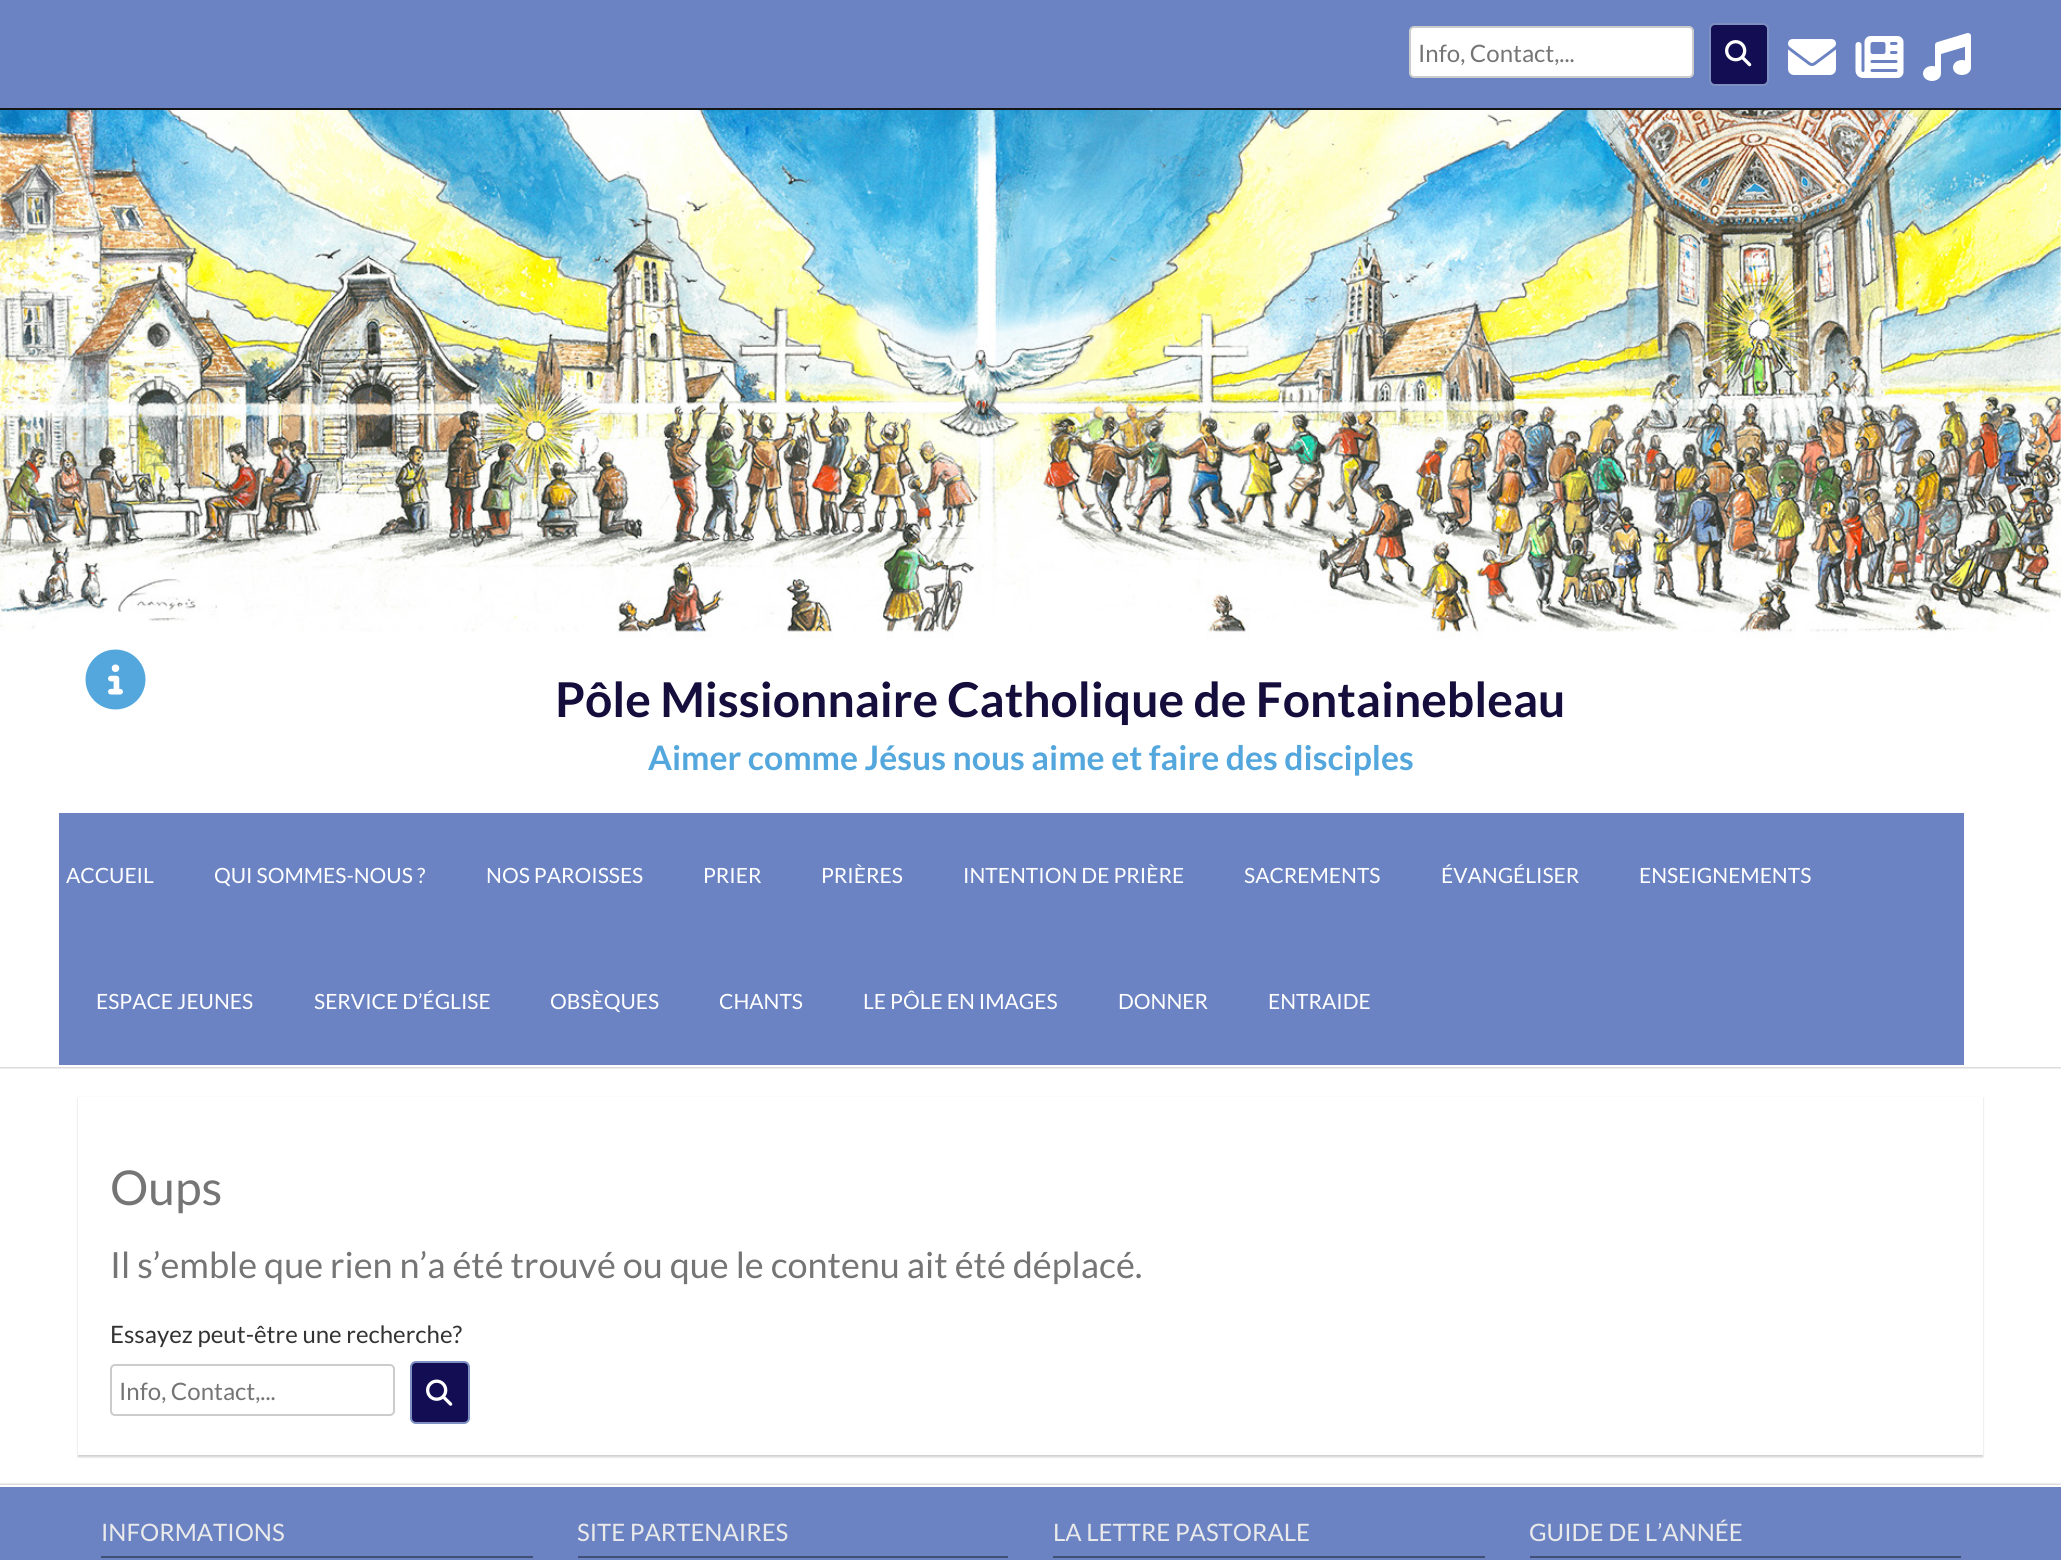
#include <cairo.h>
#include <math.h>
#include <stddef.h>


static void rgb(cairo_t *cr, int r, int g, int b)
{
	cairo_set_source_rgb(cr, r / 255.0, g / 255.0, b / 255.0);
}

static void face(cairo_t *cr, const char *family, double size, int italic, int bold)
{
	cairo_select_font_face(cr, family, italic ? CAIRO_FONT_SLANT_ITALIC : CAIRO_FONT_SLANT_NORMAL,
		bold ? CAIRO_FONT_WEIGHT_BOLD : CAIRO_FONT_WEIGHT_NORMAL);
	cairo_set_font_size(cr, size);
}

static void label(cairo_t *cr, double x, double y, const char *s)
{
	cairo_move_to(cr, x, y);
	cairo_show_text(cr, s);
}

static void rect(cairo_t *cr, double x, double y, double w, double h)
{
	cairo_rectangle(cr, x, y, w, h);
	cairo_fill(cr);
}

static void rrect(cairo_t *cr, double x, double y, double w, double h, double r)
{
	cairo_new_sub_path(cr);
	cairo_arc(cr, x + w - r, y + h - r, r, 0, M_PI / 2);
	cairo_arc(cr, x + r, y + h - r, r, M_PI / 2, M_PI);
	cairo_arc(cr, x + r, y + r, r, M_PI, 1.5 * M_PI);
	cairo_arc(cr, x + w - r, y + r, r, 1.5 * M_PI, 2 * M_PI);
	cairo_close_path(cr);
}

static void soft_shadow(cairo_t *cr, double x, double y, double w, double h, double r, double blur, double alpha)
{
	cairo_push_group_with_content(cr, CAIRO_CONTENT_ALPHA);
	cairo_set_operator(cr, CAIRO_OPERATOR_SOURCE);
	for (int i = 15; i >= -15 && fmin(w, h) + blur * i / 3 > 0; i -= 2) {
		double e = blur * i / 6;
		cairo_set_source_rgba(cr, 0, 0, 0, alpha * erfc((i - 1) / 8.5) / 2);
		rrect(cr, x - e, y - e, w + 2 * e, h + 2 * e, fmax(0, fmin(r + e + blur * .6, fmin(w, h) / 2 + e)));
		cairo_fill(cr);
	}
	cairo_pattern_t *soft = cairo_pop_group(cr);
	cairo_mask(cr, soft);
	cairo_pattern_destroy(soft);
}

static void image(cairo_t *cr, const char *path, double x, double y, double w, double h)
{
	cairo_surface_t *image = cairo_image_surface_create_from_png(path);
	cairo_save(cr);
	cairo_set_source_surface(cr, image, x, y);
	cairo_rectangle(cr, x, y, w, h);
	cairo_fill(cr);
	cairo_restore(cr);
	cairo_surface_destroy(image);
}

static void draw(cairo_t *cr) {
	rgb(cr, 255, 255, 255);
	cairo_paint(cr);
	cairo_save(cr);
	cairo_rectangle(cr, 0, 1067, 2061, 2);
	cairo_clip(cr);
	rgb(cr, 0, 0, 0);
	soft_shadow(cr, 0, 2, 2061, 1066, 0, 1, 0.2);
	cairo_restore(cr);
	rgb(cr, 107, 131, 195);
	rect(cr, 0, 0, 2061, 108);
	rgb(cr, 21, 21, 21);
	rect(cr, 0, 108, 2061, 2);
	rgb(cr, 255, 255, 255);
	rrect(cr, 1410, 27, 283, 50, 4);
	cairo_fill_preserve(cr);
	rgb(cr, 204, 204, 204);
	cairo_stroke(cr);
	face(cr, "Lato", 24, 0, 0);
	rgb(cr, 117, 117, 117);
	label(cr, 1418, 62, "Info, Contact,...");
	rgb(cr, 19, 14, 83);
	rrect(cr, 1710, 24, 58, 61, 5);
	cairo_fill_preserve(cr);
	rgb(cr, 125, 144, 193);
	cairo_stroke(cr);
	image(cr, "image0.png", 1725, 40, 27, 27);
	image(cr, "image1.png", 1788, 39, 48, 36);
	image(cr, "image2.png", 1855, 36, 49, 42);
	image(cr, "image3.png", 1923, 33, 48, 48);
	image(cr, "image4.png", 0, 110, 2061, 529);
	rgb(cr, 255, 255, 255);
	rect(cr, 0, 1066, 2061, 1);
	image(cr, "image5.png", 85, 649, 61, 61);
	face(cr, "Lato", 48, 0, 1);
	rgb(cr, 21, 14, 60);
	label(cr, 555, 717, "Pôle Missionnaire Catholique de Fontainebleau");
	face(cr, "Lato", 33.75, 0, 1);
	rgb(cr, 84, 167, 221);
	label(cr, 648, 770, "Aimer comme Jésus nous aime et faire des disciples");
	rgb(cr, 107, 131, 195);
	rect(cr, 59, 813, 1905, 252);
	face(cr, "Lato", 21, 0, 0);
	rgb(cr, 255, 255, 255);
	label(cr, 66, 883, "ACCUEIL");
	label(cr, 214, 883, "QUI SOMMES-NOUS ?");
	label(cr, 486, 883, "NOS PAROISSES");
	label(cr, 703, 883, "PRIER");
	label(cr, 821, 883, "PRIÈRES");
	label(cr, 963, 883, "INTENTION DE PRIÈRE");
	label(cr, 1244, 883, "SACREMENTS");
	label(cr, 1441, 883, "ÉVANGÉLISER");
	label(cr, 1639, 883, "ENSEIGNEMENTS");
	label(cr, 96, 1009, "ESPACE JEUNES");
	label(cr, 314, 1009, "SERVICE D’ÉGLISE");
	label(cr, 550, 1009, "OBSÈQUES");
	label(cr, 719, 1009, "CHANTS");
	label(cr, 863, 1009, "LE PÔLE EN IMAGES");
	label(cr, 1118, 1009, "DONNER");
	label(cr, 1268, 1009, "ENTRAIDE");
	cairo_save(cr);
	cairo_set_fill_rule(cr, CAIRO_FILL_RULE_EVEN_ODD);
	cairo_new_path(cr);
	cairo_move_to(cr, 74, 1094);
	cairo_line_to(cr, 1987, 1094);
	cairo_line_to(cr, 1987, 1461);
	cairo_line_to(cr, 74, 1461);
	cairo_close_path(cr);
	cairo_move_to(cr, 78, 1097);
	cairo_line_to(cr, 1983, 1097);
	cairo_line_to(cr, 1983, 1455);
	cairo_line_to(cr, 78, 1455);
	cairo_close_path(cr);
	cairo_clip(cr);
	rgb(cr, 0, 0, 0);
	soft_shadow(cr, 78, 1098, 1905, 359, 0, 1, 0.2);
	cairo_restore(cr);
	face(cr, "Lato", 48, 0, 0);
	rgb(cr, 117, 117, 117);
	label(cr, 110, 1205, "Oups");
	face(cr, "Lato", 36, 0, 0);
	label(cr, 110, 1278, "Il s’emble que rien n’a été trouvé ou que le contenu ait été déplacé.");
	face(cr, "Lato", 24, 0, 0);
	rgb(cr, 51, 51, 51);
	label(cr, 110, 1343, "Essayez peut-être une recherche?");
	rrect(cr, 111, 1365, 283, 50, 4);
	rgb(cr, 204, 204, 204);
	cairo_stroke(cr);
	rgb(cr, 117, 117, 117);
	label(cr, 119, 1400, "Info, Contact,...");
	rgb(cr, 19, 14, 83);
	rrect(cr, 411, 1362, 58, 61, 5);
	cairo_fill_preserve(cr);
	rgb(cr, 125, 144, 193);
	cairo_stroke(cr);
	image(cr, "image6.png", 426, 1379, 27, 27);
	rgb(cr, 0, 0, 0);
	soft_shadow(cr, 0, 1484, 2061, 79, 0, 1, 0.2);
	rgb(cr, 107, 131, 195);
	rect(cr, 0, 1487, 2061, 73);
	rgb(cr, 255, 255, 255);
	rect(cr, 0, 1485, 2061, 2);
	cairo_set_source_rgba(cr, 0, 0, 0, 0.4);
	rect(cr, 101, 1556, 432, 2);
	rgb(cr, 234, 234, 234);
	label(cr, 101, 1541, "INFORMATIONS");
	cairo_set_source_rgba(cr, 0, 0, 0, 0.4);
	rect(cr, 578, 1556, 430, 2);
	rgb(cr, 234, 234, 234);
	label(cr, 577, 1541, "SITE PARTENAIRES");
	cairo_set_source_rgba(cr, 0, 0, 0, 0.4);
	rect(cr, 1053, 1556, 432, 2);
	rgb(cr, 234, 234, 234);
	label(cr, 1053, 1541, "LA LETTRE PASTORALE");
	cairo_set_source_rgba(cr, 0, 0, 0, 0.4);
	rect(cr, 1530, 1556, 431, 2);
	rgb(cr, 234, 234, 234);
	label(cr, 1529, 1541, "GUIDE DE L’ANNÉE");
}

int main(void) {
	cairo_surface_t *surface = cairo_image_surface_create(CAIRO_FORMAT_RGB24, 2061, 1560);
	cairo_t *cr = cairo_create(surface);
	cairo_font_options_t *options = cairo_font_options_create();
	cairo_font_options_set_hint_metrics(options, CAIRO_HINT_METRICS_OFF);
	cairo_font_options_set_hint_style(options, CAIRO_HINT_STYLE_NONE);
	cairo_set_font_options(cr, options);
	cairo_set_miter_limit(cr, 4);
	draw(cr);
	cairo_surface_write_to_png(surface, "render.png");
	cairo_font_options_destroy(options);
	cairo_destroy(cr);
	cairo_surface_destroy(surface);
	return 0;
}
